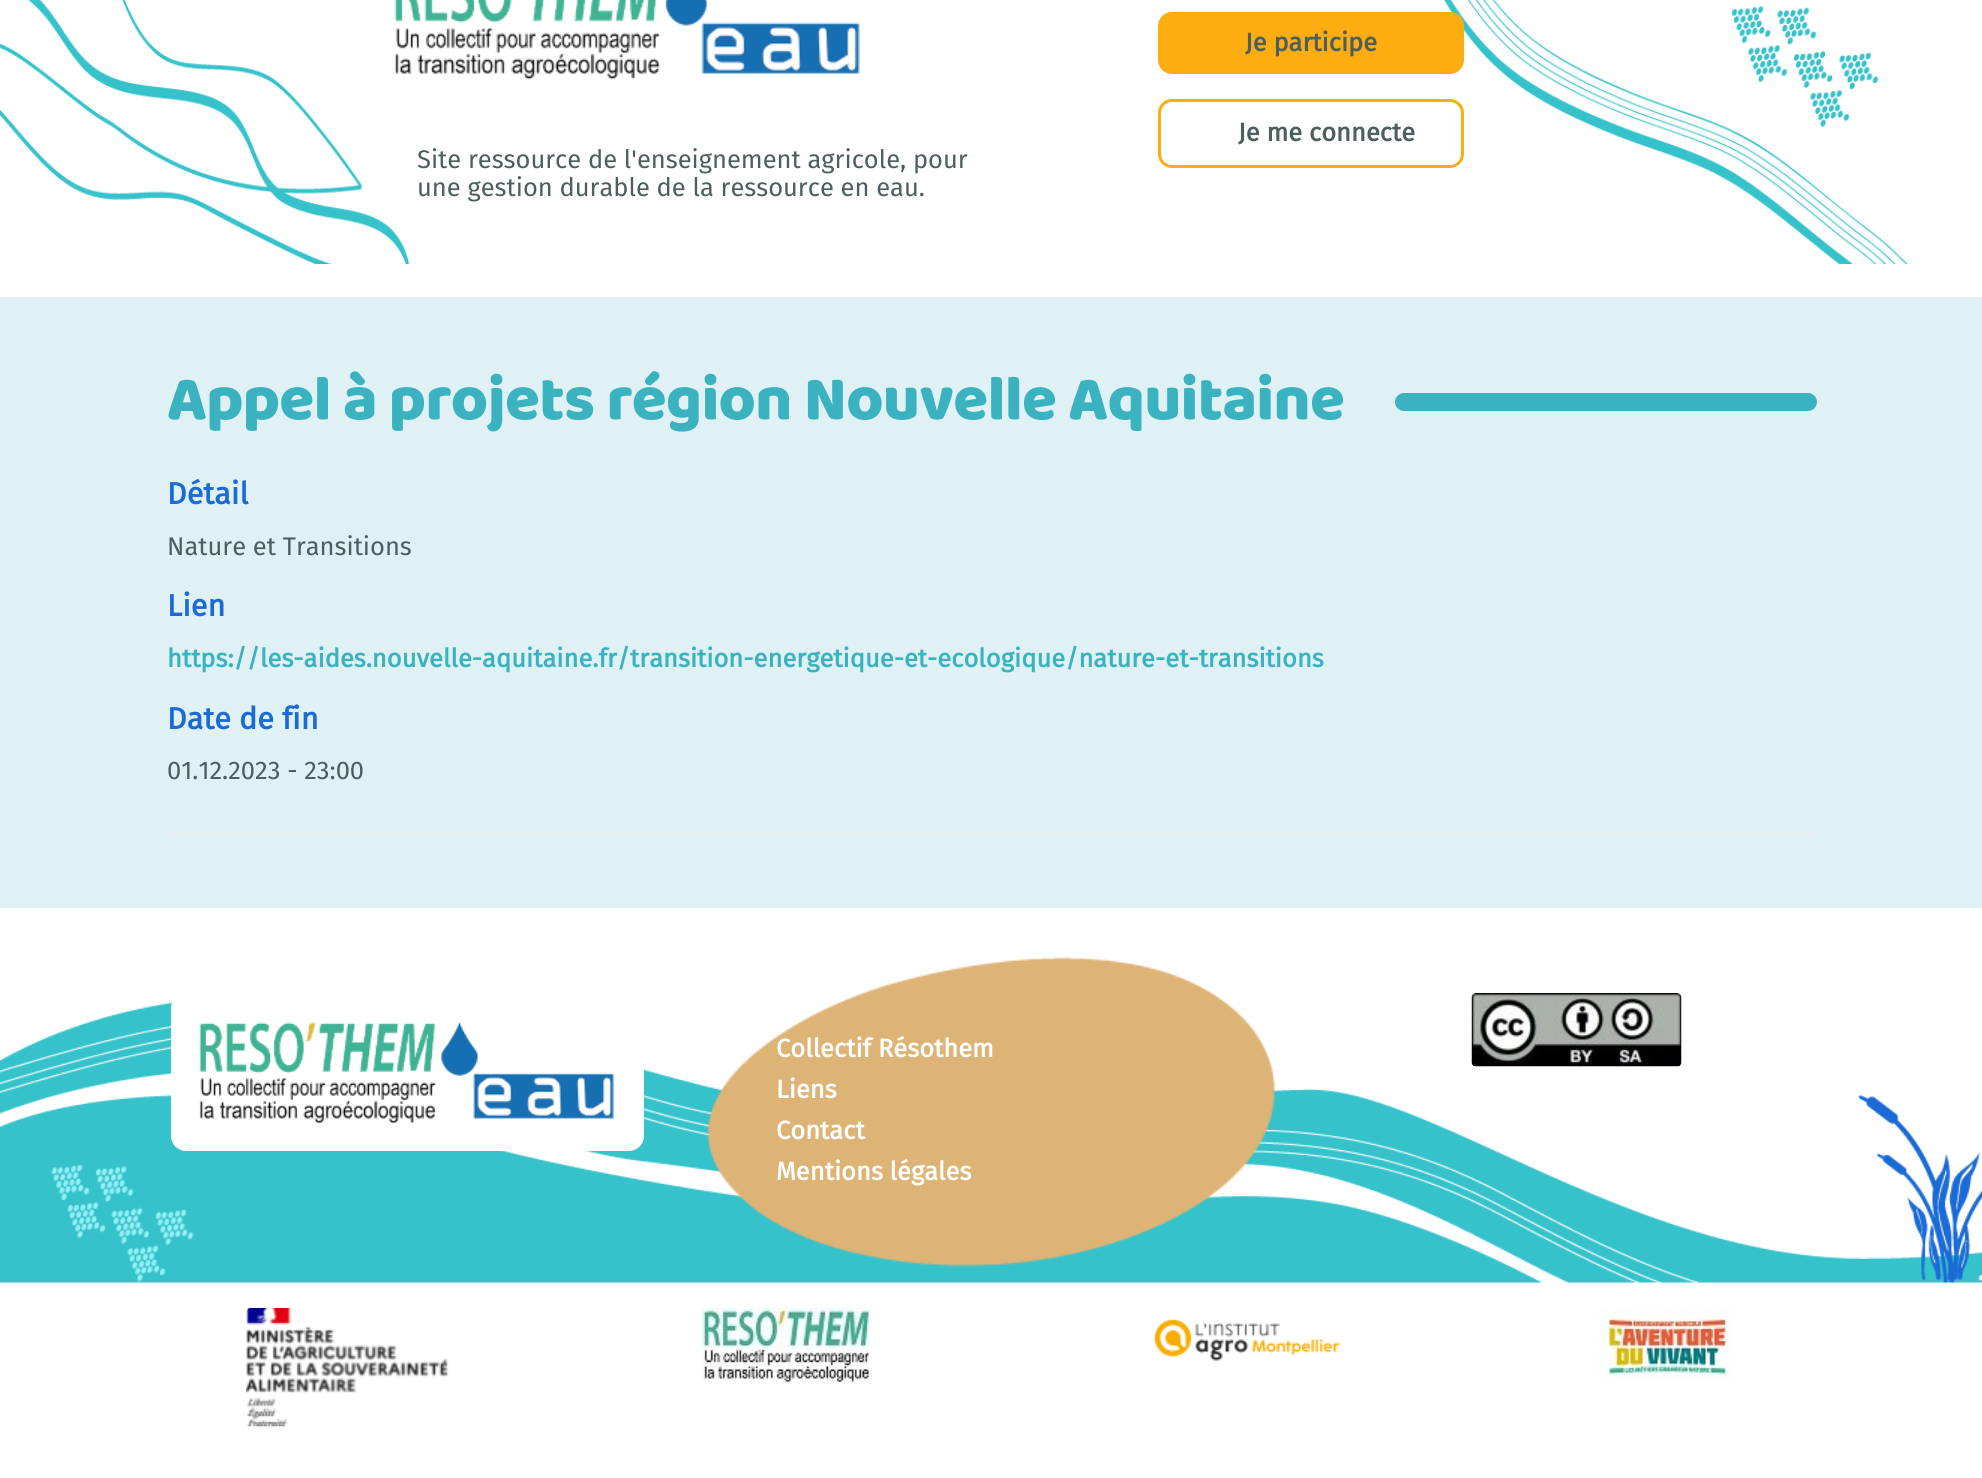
#include <cairo.h>
#include <math.h>
#include <stddef.h>


static void rgb(cairo_t *cr, int r, int g, int b)
{
	cairo_set_source_rgb(cr, r / 255.0, g / 255.0, b / 255.0);
}

static void face(cairo_t *cr, const char *family, double size, int italic, int bold)
{
	cairo_select_font_face(cr, family, italic ? CAIRO_FONT_SLANT_ITALIC : CAIRO_FONT_SLANT_NORMAL,
		bold ? CAIRO_FONT_WEIGHT_BOLD : CAIRO_FONT_WEIGHT_NORMAL);
	cairo_set_font_size(cr, size);
}

static void label(cairo_t *cr, double x, double y, const char *s)
{
	cairo_move_to(cr, x, y);
	cairo_show_text(cr, s);
}

static void tracked(cairo_t *cr, double x, double y, const char *s, double letter, double word)
{
	cairo_move_to(cr, x, y);
	while (*s) {
		char ch[5] = {0};
		int n = 0;
		do ch[n++] = *s++; while ((*s & 0xC0) == 0x80);
		cairo_show_text(cr, ch);
		cairo_rel_move_to(cr, letter + word * (*ch == ' '), 0);
	}
}

static void rect(cairo_t *cr, double x, double y, double w, double h)
{
	cairo_rectangle(cr, x, y, w, h);
	cairo_fill(cr);
}

static void rrect(cairo_t *cr, double x, double y, double w, double h, double r)
{
	cairo_new_sub_path(cr);
	cairo_arc(cr, x + w - r, y + h - r, r, 0, M_PI / 2);
	cairo_arc(cr, x + r, y + h - r, r, M_PI / 2, M_PI);
	cairo_arc(cr, x + r, y + r, r, M_PI, 1.5 * M_PI);
	cairo_arc(cr, x + w - r, y + r, r, 1.5 * M_PI, 2 * M_PI);
	cairo_close_path(cr);
}

static void image(cairo_t *cr, const char *path, double x, double y, double w, double h)
{
	cairo_surface_t *image = cairo_image_surface_create_from_png(path);
	cairo_save(cr);
	cairo_set_source_surface(cr, image, x, y);
	cairo_rectangle(cr, x, y, w, h);
	cairo_fill(cr);
	cairo_restore(cr);
	cairo_surface_destroy(image);
}

static void draw(cairo_t *cr) {
	rgb(cr, 223, 241, 245);
	cairo_paint(cr);
	rgb(cr, 255, 255, 255);
	rect(cr, 0, 0, 1982, 297);
	image(cr, "image0.png", 0, 0, 1908, 264);
	rgb(cr, 254, 173, 16);
	rrect(cr, 1158, 12, 306, 62, 14);
	cairo_fill(cr);
	face(cr, "Fira Sans", 25.5, 0, 1);
	rgb(cr, 76, 94, 94);
	label(cr, 1245, 51, "Je participe");
	rrect(cr, 1159.5, 100.5, 303, 66, 12.5);
	rgb(cr, 254, 173, 16);
	cairo_set_line_width(cr, 3);
	cairo_stroke(cr);
	rgb(cr, 76, 94, 94);
	label(cr, 1238, 141, "Je me connecte");
	image(cr, "image1.png", 394, 0, 466, 80);
	face(cr, "Fira Sans", 25.5, 0, 0);
	label(cr, 417, 168, "Site ressource de l'enseignement agricole, pour");
	label(cr, 417, 196, "une gestion durable de la ressource en eau.");
	face(cr, "Baloo 2 ExtraBold", 63.75, 0, 0);
	rgb(cr, 59, 178, 191);
	tracked(cr, 167, 419, "Appel à projets région Nouvelle Aquitaine", -0.75, 0);
	rrect(cr, 1395, 393, 422, 18, 9);
	cairo_fill(cr);
	face(cr, "Fira Sans", 30.5, 0, 1);
	rgb(cr, 27, 107, 214);
	label(cr, 167, 504, "Détail");
	face(cr, "Fira Sans", 25.5, 0, 0);
	rgb(cr, 76, 94, 94);
	label(cr, 167, 555, "Nature et Transitions");
	face(cr, "Fira Sans", 30.5, 0, 1);
	rgb(cr, 27, 107, 214);
	label(cr, 167, 616, "Lien");
	face(cr, "Fira Sans", 25.5, 0, 1);
	rgb(cr, 59, 178, 191);
	label(cr, 167, 667, "https://les-aides.nouvelle-aquitaine.fr/transition-energetique-et-ecologique/nature-et-transitions");
	face(cr, "Fira Sans", 30.5, 0, 1);
	rgb(cr, 27, 107, 214);
	label(cr, 167, 729, "Date de fin");
	face(cr, "Fira Sans", 25.5, 0, 0);
	rgb(cr, 76, 94, 94);
	label(cr, 167, 779, "01.12.2023 - 23:00");
	rgb(cr, 235, 239, 239);
	rect(cr, 167, 833, 1650, 2);
	rgb(cr, 255, 255, 255);
	rect(cr, 0, 908, 1982, 570);
	image(cr, "image2.png", 0, 1002, 1982, 281);
	rrect(cr, 171, 993, 473, 158, 15);
	cairo_fill(cr);
	image(cr, "image3.png", 199, 1022, 416, 102);
	image(cr, "image4.png", 707, 957, 568, 310);
	face(cr, "Fira Sans", 25.5, 0, 1);
	label(cr, 776, 1057, "Collectif Résothem");
	label(cr, 776, 1098, "Liens");
	label(cr, 776, 1139, "Contact");
	label(cr, 776, 1180, "Mentions légales");
	image(cr, "image5.png", 1471, 993, 211, 74);
	image(cr, "image6.png", 246, 1308, 203, 119);
	image(cr, "image7.png", 702, 1308, 169, 75);
	image(cr, "image8.png", 1153, 1318, 187, 43);
	image(cr, "image9.png", 1598, 1308, 136, 72);
}

int main(void) {
	cairo_surface_t *surface = cairo_image_surface_create(CAIRO_FORMAT_RGB24, 1982, 1478);
	cairo_t *cr = cairo_create(surface);
	cairo_font_options_t *options = cairo_font_options_create();
	cairo_font_options_set_hint_metrics(options, CAIRO_HINT_METRICS_OFF);
	cairo_font_options_set_hint_style(options, CAIRO_HINT_STYLE_NONE);
	cairo_set_font_options(cr, options);
	cairo_set_miter_limit(cr, 4);
	draw(cr);
	cairo_surface_write_to_png(surface, "render.png");
	cairo_font_options_destroy(options);
	cairo_destroy(cr);
	cairo_surface_destroy(surface);
	return 0;
}
